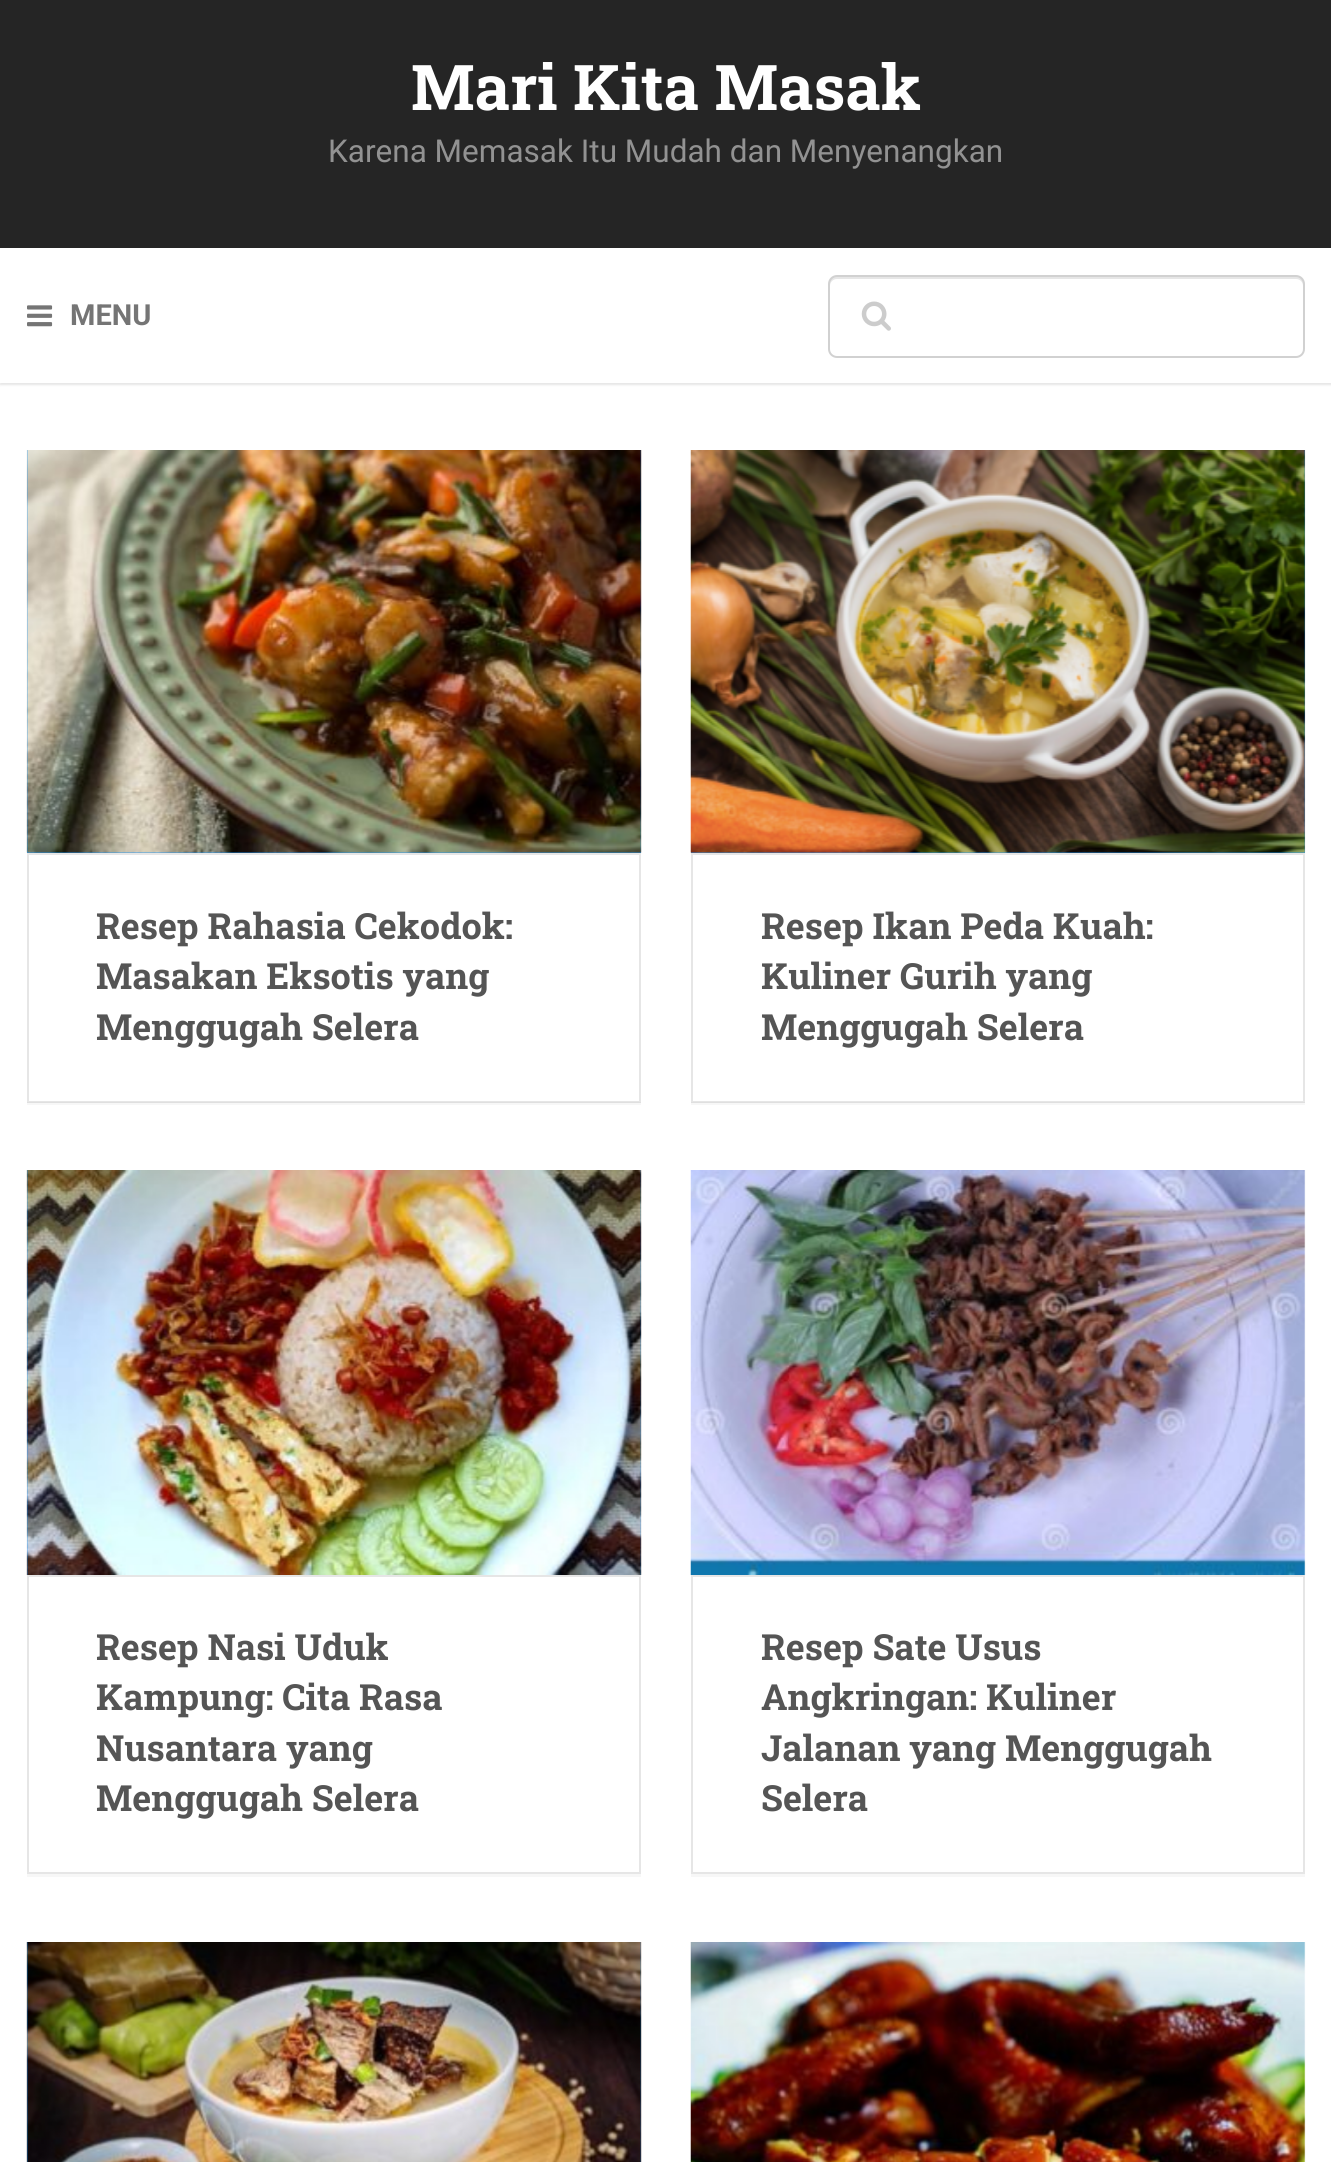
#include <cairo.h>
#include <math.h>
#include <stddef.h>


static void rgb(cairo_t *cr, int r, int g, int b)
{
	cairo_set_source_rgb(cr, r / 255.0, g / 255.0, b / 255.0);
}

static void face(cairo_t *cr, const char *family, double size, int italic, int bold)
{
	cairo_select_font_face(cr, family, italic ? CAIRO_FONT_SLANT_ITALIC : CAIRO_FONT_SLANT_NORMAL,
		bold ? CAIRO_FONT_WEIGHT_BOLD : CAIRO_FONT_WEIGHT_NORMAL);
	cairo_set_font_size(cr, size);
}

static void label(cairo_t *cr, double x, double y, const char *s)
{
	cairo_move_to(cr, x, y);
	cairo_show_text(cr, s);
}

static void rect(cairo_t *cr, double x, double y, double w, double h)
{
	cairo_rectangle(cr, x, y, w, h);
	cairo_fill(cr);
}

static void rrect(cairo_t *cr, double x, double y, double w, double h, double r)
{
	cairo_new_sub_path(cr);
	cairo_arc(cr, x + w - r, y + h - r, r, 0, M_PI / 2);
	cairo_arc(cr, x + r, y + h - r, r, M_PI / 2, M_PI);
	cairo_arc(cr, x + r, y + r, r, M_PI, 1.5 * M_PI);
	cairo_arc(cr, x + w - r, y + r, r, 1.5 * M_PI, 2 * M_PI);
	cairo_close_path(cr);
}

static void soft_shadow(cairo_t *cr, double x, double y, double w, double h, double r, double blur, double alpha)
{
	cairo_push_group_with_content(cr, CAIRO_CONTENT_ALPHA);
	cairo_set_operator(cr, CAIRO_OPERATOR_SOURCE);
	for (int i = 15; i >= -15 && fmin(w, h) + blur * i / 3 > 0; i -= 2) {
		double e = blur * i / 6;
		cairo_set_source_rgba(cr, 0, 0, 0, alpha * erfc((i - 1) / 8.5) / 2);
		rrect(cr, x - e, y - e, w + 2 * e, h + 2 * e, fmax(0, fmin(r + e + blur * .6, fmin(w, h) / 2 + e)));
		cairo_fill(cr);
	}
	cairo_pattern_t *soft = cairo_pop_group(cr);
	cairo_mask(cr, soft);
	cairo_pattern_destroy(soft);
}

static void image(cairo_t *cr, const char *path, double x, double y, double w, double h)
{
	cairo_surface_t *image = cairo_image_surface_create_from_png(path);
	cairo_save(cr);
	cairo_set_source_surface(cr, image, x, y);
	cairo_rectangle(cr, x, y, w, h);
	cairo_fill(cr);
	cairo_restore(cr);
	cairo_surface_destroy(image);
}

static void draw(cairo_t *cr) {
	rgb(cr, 37, 37, 37);
	cairo_paint(cr);
	face(cr, "Roboto Slab", 63, 0, 1);
	rgb(cr, 255, 255, 255);
	label(cr, 411, 110, "Mari Kita Masak");
	face(cr, "Roboto", 31.5, 0, 0);
	rgb(cr, 146, 146, 146);
	label(cr, 328, 162, "Karena Memasak Itu Mudah dan Menyenangkan");
	rgb(cr, 255, 255, 255);
	rect(cr, 0, 383, 1331, 1779);
	rgb(cr, 0, 0, 0);
	soft_shadow(cr, 0, 250, 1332, 135, 0, 1, 0.1);
	rgb(cr, 255, 255, 255);
	rect(cr, 0, 248, 1331, 135);
	image(cr, "image0.png", 27, 305, 26, 22);
	face(cr, "Roboto", 29, 0, 1);
	rgb(cr, 117, 117, 117);
	label(cr, 70, 325, "MENU");
	rgb(cr, 230, 230, 230);
	cairo_new_path(cr);
	cairo_move_to(cr, 837, 279);
	cairo_line_to(cr, 1296, 279);
	cairo_curve_to(cr, 1300, 279, 1303, 282, 1303, 286);
	cairo_line_to(cr, 1303, 284);
	cairo_curve_to(cr, 1303, 280, 1300, 277, 1296, 277);
	cairo_line_to(cr, 837, 277);
	cairo_curve_to(cr, 833, 277, 830, 280, 830, 284);
	cairo_line_to(cr, 830, 286);
	cairo_curve_to(cr, 830, 282, 833, 279, 837, 279);
	cairo_close_path(cr);
	cairo_fill(cr);
	rrect(cr, 829, 276, 475, 81, 8);
	cairo_set_source_rgba(cr, 0, 0, 0, 0.18);
	cairo_stroke(cr);
	image(cr, "image1.png", 861, 301, 30, 30);
	rgb(cr, 247, 247, 247);
	rect(cr, 27, 1102, 614, 3);
	rgb(cr, 33, 150, 243);
	rect(cr, 27, 450, 614, 403);
	image(cr, "image2.png", 26, 450, 616, 403);
	cairo_rectangle(cr, 28, 854, 612, 248);
	cairo_set_source_rgba(cr, 0, 0, 0, 0.1);
	cairo_stroke(cr);
	face(cr, "Roboto Slab", 36, 0, 1);
	rgb(cr, 85, 85, 85);
	label(cr, 96, 939, "Resep Rahasia Cekodok:");
	label(cr, 96, 989, "Masakan Eksotis yang");
	label(cr, 96, 1040, "Menggugah Selera");
	rgb(cr, 247, 247, 247);
	rect(cr, 691, 1102, 614, 3);
	rgb(cr, 33, 150, 243);
	rect(cr, 691, 450, 614, 403);
	image(cr, "image3.png", 690, 450, 616, 403);
	cairo_rectangle(cr, 692, 854, 612, 248);
	cairo_set_source_rgba(cr, 0, 0, 0, 0.1);
	cairo_stroke(cr);
	rgb(cr, 85, 85, 85);
	label(cr, 761, 939, "Resep Ikan Peda Kuah:");
	label(cr, 761, 989, "Kuliner Gurih yang");
	label(cr, 761, 1040, "Menggugah Selera");
	rgb(cr, 247, 247, 247);
	rect(cr, 27, 1874, 614, 3);
	rgb(cr, 33, 150, 243);
	rect(cr, 27, 1170, 614, 405);
	image(cr, "image4.png", 26, 1170, 616, 405);
	cairo_rectangle(cr, 28, 1576, 612, 297);
	rgb(cr, 230, 230, 230);
	cairo_stroke(cr);
	rgb(cr, 85, 85, 85);
	label(cr, 96, 1660, "Resep Nasi Uduk");
	label(cr, 96, 1710, "Kampung: Cita Rasa");
	label(cr, 96, 1761, "Nusantara yang");
	label(cr, 96, 1811, "Menggugah Selera");
	rgb(cr, 247, 247, 247);
	rect(cr, 691, 1874, 614, 3);
	image(cr, "image5.png", 690, 1170, 616, 405);
	cairo_rectangle(cr, 692, 1576, 612, 297);
	rgb(cr, 230, 230, 230);
	cairo_stroke(cr);
	rgb(cr, 85, 85, 85);
	label(cr, 761, 1660, "Resep Sate Usus");
	label(cr, 761, 1710, "Angkringan: Kuliner");
	label(cr, 761, 1761, "Jalanan yang Menggugah");
	label(cr, 761, 1811, "Selera");
	rgb(cr, 33, 150, 243);
	rect(cr, 27, 1942, 614, 220);
	image(cr, "image6.png", 26, 1942, 616, 220);
	image(cr, "image7.png", 690, 1942, 616, 220);
}

int main(void) {
	cairo_surface_t *surface = cairo_image_surface_create(CAIRO_FORMAT_RGB24, 1331, 2162);
	cairo_t *cr = cairo_create(surface);
	cairo_font_options_t *options = cairo_font_options_create();
	cairo_font_options_set_hint_metrics(options, CAIRO_HINT_METRICS_OFF);
	cairo_font_options_set_hint_style(options, CAIRO_HINT_STYLE_NONE);
	cairo_set_font_options(cr, options);
	cairo_set_miter_limit(cr, 4);
	draw(cr);
	cairo_surface_write_to_png(surface, "render.png");
	cairo_font_options_destroy(options);
	cairo_destroy(cr);
	cairo_surface_destroy(surface);
	return 0;
}
